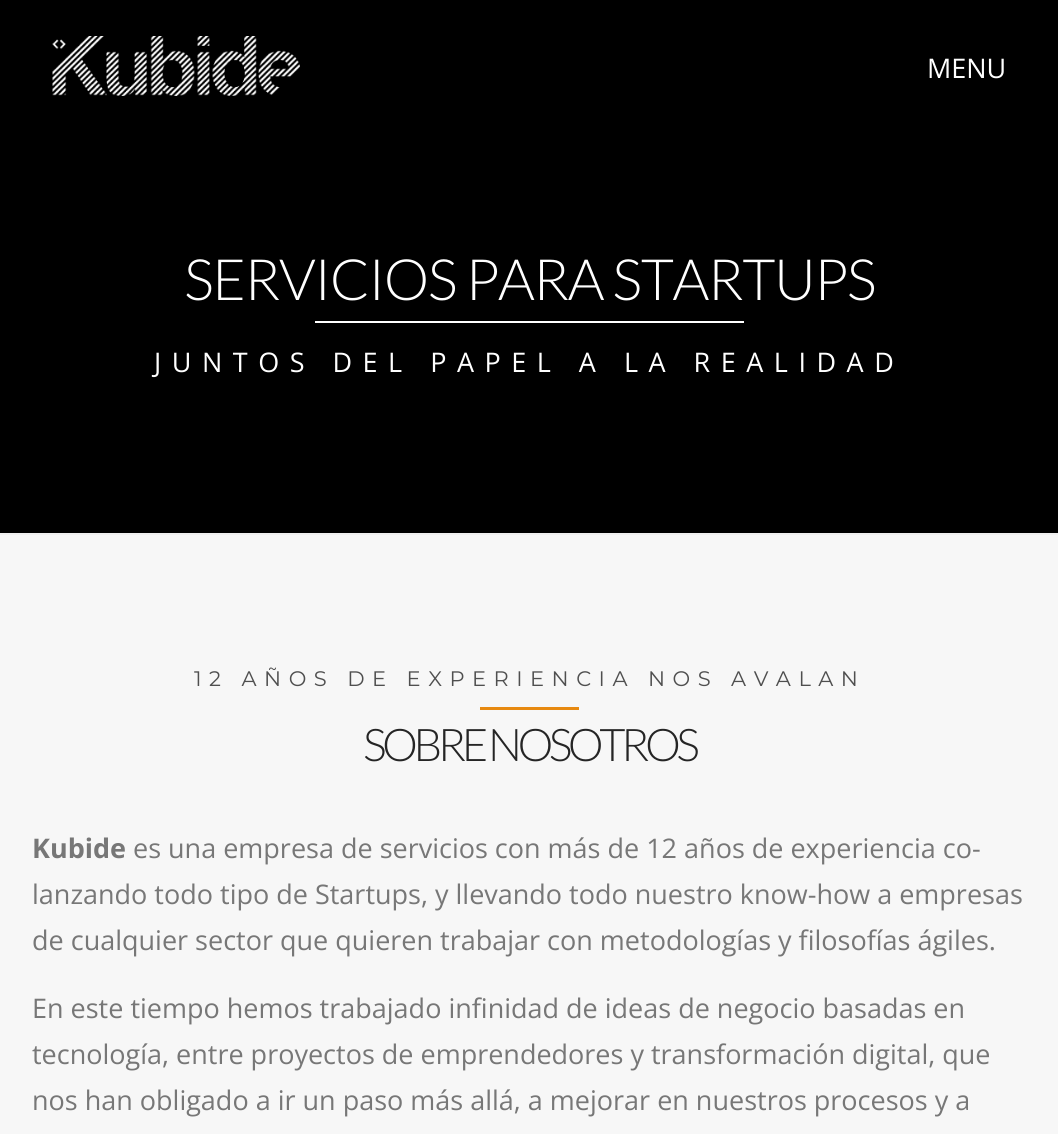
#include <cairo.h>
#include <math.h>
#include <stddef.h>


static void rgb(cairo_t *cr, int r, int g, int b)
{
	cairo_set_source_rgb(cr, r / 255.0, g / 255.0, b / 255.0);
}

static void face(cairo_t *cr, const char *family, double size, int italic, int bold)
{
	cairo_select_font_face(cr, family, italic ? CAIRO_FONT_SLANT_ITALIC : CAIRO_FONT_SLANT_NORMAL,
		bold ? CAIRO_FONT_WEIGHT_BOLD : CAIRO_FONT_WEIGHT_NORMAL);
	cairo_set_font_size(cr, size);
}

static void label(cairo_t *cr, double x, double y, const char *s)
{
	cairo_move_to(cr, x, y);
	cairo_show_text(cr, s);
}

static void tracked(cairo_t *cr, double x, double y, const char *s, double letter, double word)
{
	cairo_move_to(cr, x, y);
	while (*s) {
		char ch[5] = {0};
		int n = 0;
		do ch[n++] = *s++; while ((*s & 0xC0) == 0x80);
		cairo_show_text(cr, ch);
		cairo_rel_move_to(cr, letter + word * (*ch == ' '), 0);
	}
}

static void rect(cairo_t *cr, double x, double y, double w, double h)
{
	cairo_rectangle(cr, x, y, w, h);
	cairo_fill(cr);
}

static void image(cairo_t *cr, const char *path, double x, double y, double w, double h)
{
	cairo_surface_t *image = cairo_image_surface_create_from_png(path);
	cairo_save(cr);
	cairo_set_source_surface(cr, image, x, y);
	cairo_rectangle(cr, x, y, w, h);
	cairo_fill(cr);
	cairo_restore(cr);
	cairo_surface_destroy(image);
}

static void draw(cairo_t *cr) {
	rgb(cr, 0, 0, 0);
	cairo_paint(cr);
	image(cr, "image0.png", 52, 36, 248, 60);
	face(cr, "Open Sans", 27, 0, 0);
	rgb(cr, 255, 255, 255);
	label(cr, 927, 78, "MENU");
	face(cr, "Lato Light", 57, 0, 0);
	tracked(cr, 184, 300, "SERVICIOS PARA STARTUPS", -1.5, 0);
	rect(cr, 315, 321, 429, 2);
	face(cr, "Open Sans", 27, 0, 0);
	tracked(cr, 154, 372, "JUNTOS DEL PAPEL A LA REALIDAD", 10.5, 0);
	rgb(cr, 247, 247, 247);
	rect(cr, 0, 535, 1058, 599);
	rgb(cr, 240, 240, 240);
	rect(cr, 0, 533, 1058, 2);
	face(cr, "Montserrat", 21, 0, 0);
	rgb(cr, 79, 79, 79);
	tracked(cr, 194, 686, "12 AÑOS DE EXPERIENCIA NOS AVALAN", 7.5, 0);
	rgb(cr, 231, 137, 16);
	rect(cr, 480, 707, 99, 3);
	face(cr, "Lato Light", 45, 0, 0);
	rgb(cr, 37, 37, 37);
	tracked(cr, 363, 761, "SOBRE NOSOTROS", -4.5, 0);
	face(cr, "Open Sans", 27, 0, 1);
	rgb(cr, 119, 119, 119);
	label(cr, 32, 858, "Kubide");
	face(cr, "Open Sans", 27, 0, 0);
	label(cr, 133, 858, "es una empresa de servicios con más de 12 años de experiencia co-");
	label(cr, 32, 904, "lanzando todo tipo de Startups, y llevando todo nuestro know-how a empresas");
	label(cr, 32, 950, "de cualquier sector que quieren trabajar con metodologías y filosofías ágiles.");
	label(cr, 32, 1018, "En este tiempo hemos trabajado infinidad de ideas de negocio basadas en");
	label(cr, 32, 1064, "tecnología, entre proyectos de emprendedores y transformación digital, que");
	label(cr, 32, 1110, "nos han obligado a ir un paso más allá, a mejorar en nuestros procesos y a");
}

int main(void) {
	cairo_surface_t *surface = cairo_image_surface_create(CAIRO_FORMAT_RGB24, 1058, 1134);
	cairo_t *cr = cairo_create(surface);
	cairo_font_options_t *options = cairo_font_options_create();
	cairo_font_options_set_hint_metrics(options, CAIRO_HINT_METRICS_OFF);
	cairo_font_options_set_hint_style(options, CAIRO_HINT_STYLE_NONE);
	cairo_set_font_options(cr, options);
	cairo_set_miter_limit(cr, 4);
	draw(cr);
	cairo_surface_write_to_png(surface, "render.png");
	cairo_font_options_destroy(options);
	cairo_destroy(cr);
	cairo_surface_destroy(surface);
	return 0;
}
